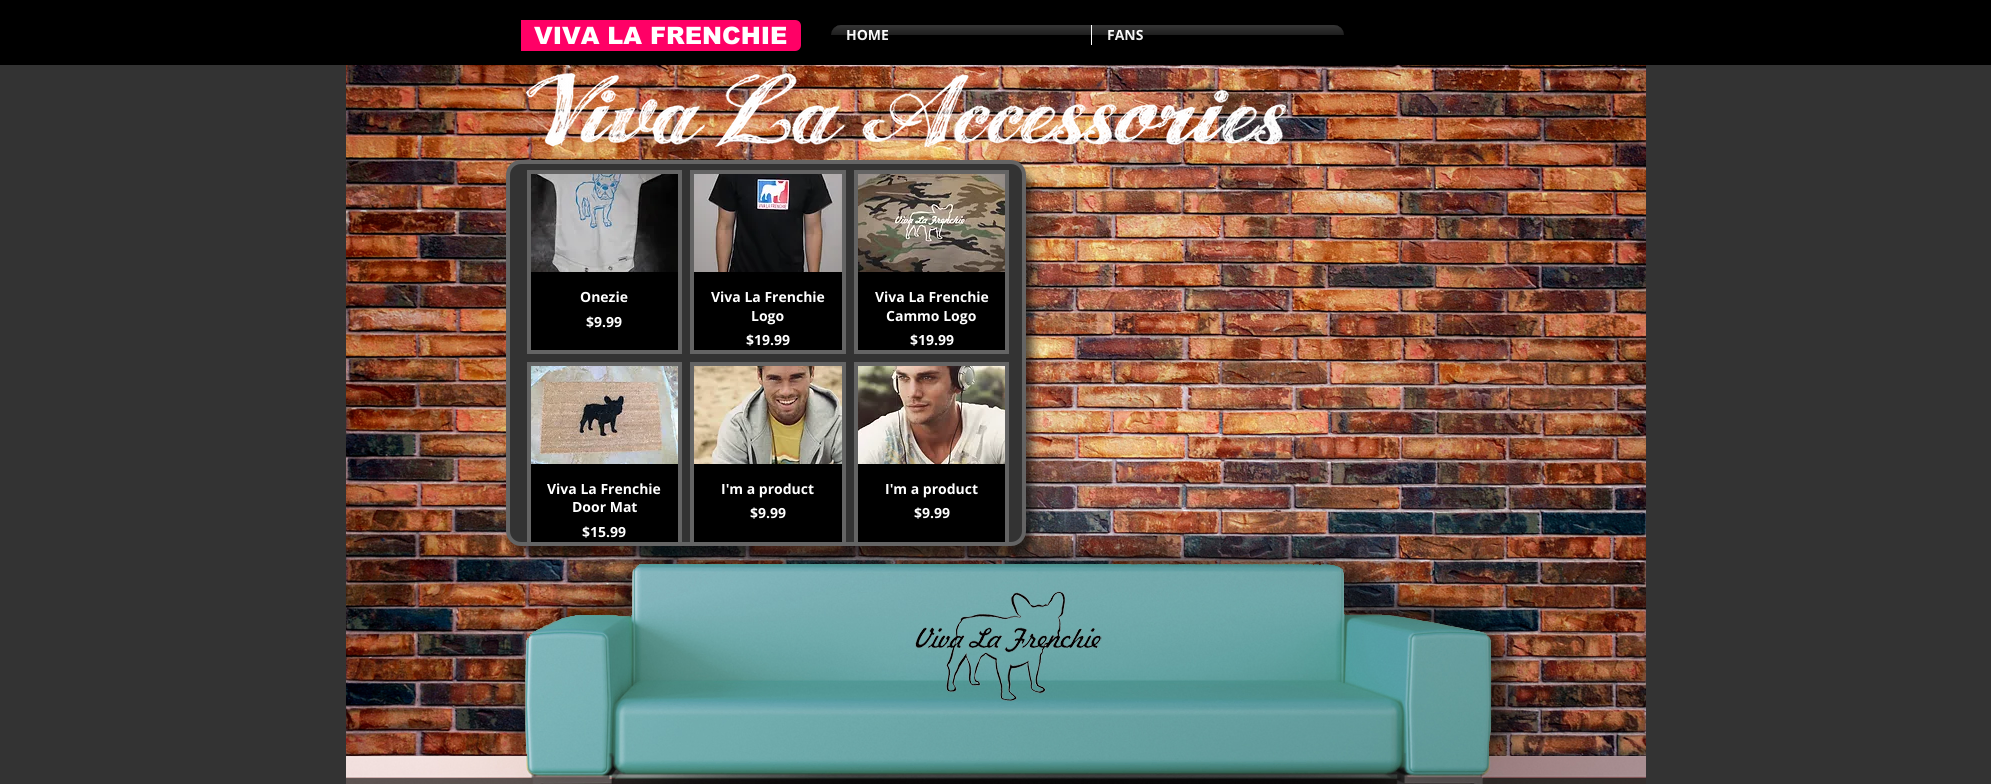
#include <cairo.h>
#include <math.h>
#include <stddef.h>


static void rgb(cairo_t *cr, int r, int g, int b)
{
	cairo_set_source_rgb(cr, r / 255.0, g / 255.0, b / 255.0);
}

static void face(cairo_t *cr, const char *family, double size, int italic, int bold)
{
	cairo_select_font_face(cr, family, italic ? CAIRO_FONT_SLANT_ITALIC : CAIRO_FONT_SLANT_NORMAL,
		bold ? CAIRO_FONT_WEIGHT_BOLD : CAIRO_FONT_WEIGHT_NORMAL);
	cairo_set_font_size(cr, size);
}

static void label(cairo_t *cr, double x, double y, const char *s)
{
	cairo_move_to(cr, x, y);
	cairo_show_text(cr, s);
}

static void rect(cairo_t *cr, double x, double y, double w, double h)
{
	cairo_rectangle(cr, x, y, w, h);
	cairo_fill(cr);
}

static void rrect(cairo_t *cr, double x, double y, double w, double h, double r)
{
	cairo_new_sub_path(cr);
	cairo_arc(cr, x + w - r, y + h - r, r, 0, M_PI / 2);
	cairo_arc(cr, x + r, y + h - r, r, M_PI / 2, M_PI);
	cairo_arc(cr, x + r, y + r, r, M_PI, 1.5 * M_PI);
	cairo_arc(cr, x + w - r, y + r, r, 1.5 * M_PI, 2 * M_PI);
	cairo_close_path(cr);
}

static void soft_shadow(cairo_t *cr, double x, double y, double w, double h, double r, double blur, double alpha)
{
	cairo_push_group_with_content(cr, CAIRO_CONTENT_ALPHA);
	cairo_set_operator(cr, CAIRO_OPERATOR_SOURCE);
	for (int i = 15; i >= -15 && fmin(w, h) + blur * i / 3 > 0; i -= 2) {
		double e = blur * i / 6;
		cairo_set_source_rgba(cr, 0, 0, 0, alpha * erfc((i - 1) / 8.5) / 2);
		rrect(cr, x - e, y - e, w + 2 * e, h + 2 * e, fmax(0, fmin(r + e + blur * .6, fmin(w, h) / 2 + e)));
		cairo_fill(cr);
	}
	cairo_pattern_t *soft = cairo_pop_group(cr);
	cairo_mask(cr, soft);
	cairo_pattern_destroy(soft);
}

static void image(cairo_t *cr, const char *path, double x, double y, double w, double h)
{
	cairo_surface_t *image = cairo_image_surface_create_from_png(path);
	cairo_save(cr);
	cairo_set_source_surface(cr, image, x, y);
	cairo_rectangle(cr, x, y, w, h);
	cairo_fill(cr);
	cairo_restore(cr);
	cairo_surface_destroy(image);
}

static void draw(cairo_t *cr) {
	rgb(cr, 51, 51, 51);
	cairo_paint(cr);
	rgb(cr, 0, 0, 0);
	rect(cr, 0, 0, 1991, 65);
	rgb(cr, 255, 0, 102);
	cairo_new_path(cr);
	cairo_move_to(cr, 521, 20);
	cairo_line_to(cr, 795, 20);
	cairo_curve_to(cr, 798.5, 20, 801, 22.5, 801, 26);
	cairo_line_to(cr, 801, 45);
	cairo_curve_to(cr, 801, 48.5, 798.5, 51, 795, 51);
	cairo_line_to(cr, 521, 51);
	cairo_close_path(cr);
	cairo_fill(cr);
	face(cr, "arial Black", 24, 0, 0);
	rgb(cr, 255, 255, 255);
	label(cr, 534, 44, "VIVA LA FRENCHIE");
	image(cr, "image0.png", 831, 25, 513, 10);
	rgb(cr, 0, 0, 0);
	cairo_new_path(cr);
	cairo_move_to(cr, 841, 25);
	cairo_line_to(cr, 1091, 25);
	cairo_line_to(cr, 1091, 45);
	cairo_line_to(cr, 841, 45);
	cairo_curve_to(cr, 835.5, 45, 831, 40.5, 831, 35);
	cairo_curve_to(cr, 831, 29.5, 835.5, 25, 841, 25);
	cairo_close_path(cr);
	cairo_fill(cr);
	face(cr, "Open Sans", 14, 0, 1);
	rgb(cr, 255, 255, 255);
	label(cr, 846, 40, "HOME");
	image(cr, "image1.png", 831, 25, 260, 15);
	rgb(cr, 0, 0, 0);
	cairo_new_path(cr);
	cairo_move_to(cr, 1091, 25);
	cairo_line_to(cr, 1334, 25);
	cairo_curve_to(cr, 1339.5, 25, 1344, 29.5, 1344, 35);
	cairo_curve_to(cr, 1344, 40.5, 1339.5, 45, 1334, 45);
	cairo_line_to(cr, 1091, 45);
	cairo_close_path(cr);
	cairo_fill(cr);
	rgb(cr, 255, 255, 255);
	rect(cr, 1091, 25, 1, 20);
	label(cr, 1107, 40, "FANS");
	image(cr, "image2.png", 1092, 25, 252, 15);
	image(cr, "image10.png", 346, 65, 1300, 719);
	image(cr, "image3.png", 526, 71, 760, 76);
	rgb(cr, 0, 0, 0);
	soft_shadow(cr, 517, 173, 516, 382, 13, 4.5, 0.6);
	rgb(cr, 51, 51, 51);
	rrect(cr, 508, 162, 516, 382, 13);
	cairo_fill_preserve(cr);
	rgb(cr, 100, 100, 100);
	cairo_set_line_width(cr, 4);
	cairo_stroke(cr);
	rgb(cr, 0, 0, 0);
	rect(cr, 531, 272, 147, 78);
	cairo_rectangle(cr, 529, 172, 151, 180);
	rgb(cr, 100, 100, 100);
	cairo_stroke(cr);
	image(cr, "image4.png", 531, 174, 147, 98);
	rgb(cr, 255, 255, 255);
	label(cr, 580, 302, "Onezie");
	label(cr, 586, 327, "$9.99");
	rgb(cr, 0, 0, 0);
	rect(cr, 694, 272, 148, 78);
	cairo_rectangle(cr, 692, 172, 152, 180);
	rgb(cr, 100, 100, 100);
	cairo_stroke(cr);
	image(cr, "image5.png", 694, 174, 148, 98);
	rgb(cr, 255, 255, 255);
	label(cr, 711, 302, "Viva La Frenchie");
	label(cr, 751, 321, "Logo");
	label(cr, 746, 345, "$19.99");
	rgb(cr, 0, 0, 0);
	rect(cr, 858, 272, 147, 78);
	cairo_rectangle(cr, 856, 172, 151, 180);
	rgb(cr, 100, 100, 100);
	cairo_stroke(cr);
	image(cr, "image6.png", 858, 174, 147, 98);
	rgb(cr, 255, 255, 255);
	label(cr, 875, 302, "Viva La Frenchie");
	label(cr, 886, 321, "Cammo Logo");
	label(cr, 910, 345, "$19.99");
	rgb(cr, 0, 0, 0);
	rect(cr, 531, 464, 147, 78);
	cairo_rectangle(cr, 529, 364, 151, 180);
	rgb(cr, 100, 100, 100);
	cairo_stroke(cr);
	image(cr, "image7.png", 531, 366, 147, 98);
	rgb(cr, 255, 255, 255);
	label(cr, 547, 494, "Viva La Frenchie");
	label(cr, 572, 512, "Door Mat");
	label(cr, 582, 537, "$15.99");
	rgb(cr, 0, 0, 0);
	rect(cr, 694, 464, 148, 78);
	cairo_rectangle(cr, 692, 364, 152, 180);
	rgb(cr, 100, 100, 100);
	cairo_stroke(cr);
	image(cr, "image8.png", 694, 366, 148, 98);
	rgb(cr, 255, 255, 255);
	label(cr, 721, 494, "I'm a product");
	label(cr, 750, 518, "$9.99");
	rgb(cr, 0, 0, 0);
	rect(cr, 858, 464, 147, 78);
	cairo_rectangle(cr, 856, 364, 151, 180);
	rgb(cr, 100, 100, 100);
	cairo_stroke(cr);
	image(cr, "image9.png", 858, 366, 147, 98);
	rgb(cr, 255, 255, 255);
	label(cr, 885, 494, "I'm a product");
	label(cr, 914, 518, "$9.99");
}

int main(void) {
	cairo_surface_t *surface = cairo_image_surface_create(CAIRO_FORMAT_RGB24, 1991, 784);
	cairo_t *cr = cairo_create(surface);
	cairo_font_options_t *options = cairo_font_options_create();
	cairo_font_options_set_hint_metrics(options, CAIRO_HINT_METRICS_OFF);
	cairo_font_options_set_hint_style(options, CAIRO_HINT_STYLE_NONE);
	cairo_set_font_options(cr, options);
	cairo_set_miter_limit(cr, 4);
	draw(cr);
	cairo_surface_write_to_png(surface, "render.png");
	cairo_font_options_destroy(options);
	cairo_destroy(cr);
	cairo_surface_destroy(surface);
	return 0;
}
